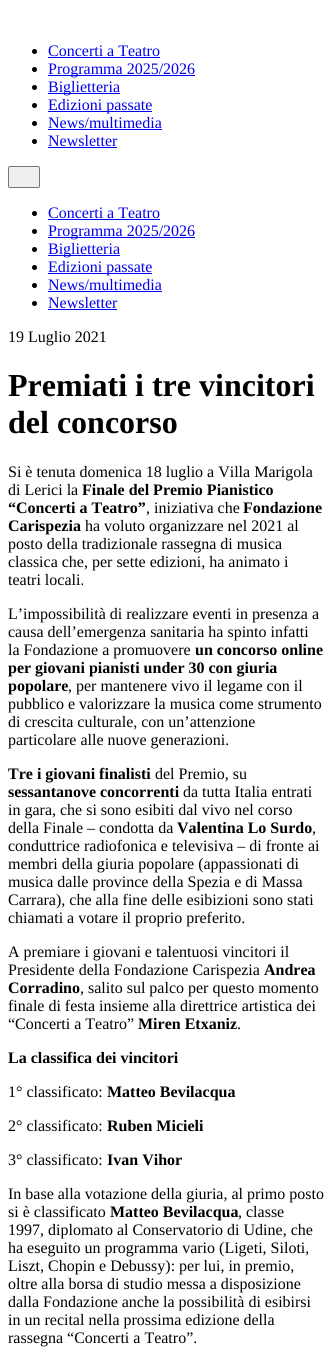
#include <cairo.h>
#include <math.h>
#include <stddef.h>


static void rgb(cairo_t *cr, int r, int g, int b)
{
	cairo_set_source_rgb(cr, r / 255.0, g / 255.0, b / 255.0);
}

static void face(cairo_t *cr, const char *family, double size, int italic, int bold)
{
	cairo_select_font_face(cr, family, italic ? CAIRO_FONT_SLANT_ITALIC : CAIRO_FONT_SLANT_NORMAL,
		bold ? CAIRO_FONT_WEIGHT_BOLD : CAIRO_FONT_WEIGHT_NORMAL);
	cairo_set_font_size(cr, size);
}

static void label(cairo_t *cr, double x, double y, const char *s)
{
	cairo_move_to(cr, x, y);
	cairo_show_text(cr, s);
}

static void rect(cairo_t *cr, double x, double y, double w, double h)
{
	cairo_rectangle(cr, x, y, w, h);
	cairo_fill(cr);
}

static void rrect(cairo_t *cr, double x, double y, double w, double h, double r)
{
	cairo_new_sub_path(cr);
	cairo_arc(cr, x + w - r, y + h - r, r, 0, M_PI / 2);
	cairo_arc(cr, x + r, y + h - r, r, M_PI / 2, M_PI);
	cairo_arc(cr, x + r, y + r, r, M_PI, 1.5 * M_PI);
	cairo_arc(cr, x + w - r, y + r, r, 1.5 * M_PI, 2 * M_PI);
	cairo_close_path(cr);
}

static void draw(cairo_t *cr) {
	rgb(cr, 255, 255, 255);
	cairo_paint(cr);
	rgb(cr, 0, 0, 0);
	cairo_arc(cr, 34.5, 51.5, 2.5, 0, 2 * M_PI);
	cairo_fill(cr);
	face(cr, "Liberation Serif", 16, 0, 0);
	rgb(cr, 0, 0, 238);
	label(cr, 48, 56, "Concerti a Teatro");
	rect(cr, 48, 57, 112, 1);
	rgb(cr, 0, 0, 0);
	cairo_new_path(cr);
	cairo_arc(cr, 34.5, 69.5, 2.5, 0, 2 * M_PI);
	cairo_fill(cr);
	rgb(cr, 0, 0, 238);
	rect(cr, 48, 75, 147, 1);
	label(cr, 48, 74, "Programma 2025/2026");
	rgb(cr, 0, 0, 0);
	cairo_new_path(cr);
	cairo_arc(cr, 34.5, 87.5, 2.5, 0, 2 * M_PI);
	cairo_fill(cr);
	rgb(cr, 0, 0, 238);
	rect(cr, 48, 93, 72, 1);
	label(cr, 48, 92, "Biglietteria");
	rgb(cr, 0, 0, 0);
	cairo_new_path(cr);
	cairo_arc(cr, 34.5, 105.5, 2.5, 0, 2 * M_PI);
	cairo_fill(cr);
	rgb(cr, 0, 0, 238);
	rect(cr, 48, 111, 104, 1);
	label(cr, 48, 110, "Edizioni passate");
	rgb(cr, 0, 0, 0);
	cairo_new_path(cr);
	cairo_arc(cr, 34.5, 123.5, 2.5, 0, 2 * M_PI);
	cairo_fill(cr);
	rgb(cr, 0, 0, 238);
	label(cr, 48, 128, "News/multimedia");
	rect(cr, 48, 129, 114, 1);
	rgb(cr, 0, 0, 0);
	cairo_new_path(cr);
	cairo_arc(cr, 34.5, 141.5, 2.5, 0, 2 * M_PI);
	cairo_fill(cr);
	rgb(cr, 0, 0, 238);
	label(cr, 48, 146, "Newsletter");
	rect(cr, 48, 147, 69, 1);
	rgb(cr, 239, 239, 239);
	rrect(cr, 8.5, 166.5, 31, 21, 1.5);
	cairo_fill_preserve(cr);
	rgb(cr, 118, 118, 118);
	cairo_set_line_width(cr, 1);
	cairo_stroke(cr);
	rgb(cr, 0, 0, 0);
	cairo_arc(cr, 34.5, 213.5, 2.5, 0, 2 * M_PI);
	cairo_fill(cr);
	rgb(cr, 0, 0, 238);
	label(cr, 48, 218, "Concerti a Teatro");
	rect(cr, 48, 219, 112, 1);
	rgb(cr, 0, 0, 0);
	cairo_new_path(cr);
	cairo_arc(cr, 34.5, 231.5, 2.5, 0, 2 * M_PI);
	cairo_fill(cr);
	rgb(cr, 0, 0, 238);
	rect(cr, 48, 237, 147, 1);
	label(cr, 48, 236, "Programma 2025/2026");
	rgb(cr, 0, 0, 0);
	cairo_new_path(cr);
	cairo_arc(cr, 34.5, 249.5, 2.5, 0, 2 * M_PI);
	cairo_fill(cr);
	rgb(cr, 0, 0, 238);
	rect(cr, 48, 255, 72, 1);
	label(cr, 48, 254, "Biglietteria");
	rgb(cr, 0, 0, 0);
	cairo_new_path(cr);
	cairo_arc(cr, 34.5, 267.5, 2.5, 0, 2 * M_PI);
	cairo_fill(cr);
	rgb(cr, 0, 0, 238);
	rect(cr, 48, 273, 104, 1);
	label(cr, 48, 272, "Edizioni passate");
	rgb(cr, 0, 0, 0);
	cairo_new_path(cr);
	cairo_arc(cr, 34.5, 285.5, 2.5, 0, 2 * M_PI);
	cairo_fill(cr);
	rgb(cr, 0, 0, 238);
	label(cr, 48, 290, "News/multimedia");
	rect(cr, 48, 291, 114, 1);
	rgb(cr, 0, 0, 0);
	cairo_new_path(cr);
	cairo_arc(cr, 34.5, 303.5, 2.5, 0, 2 * M_PI);
	cairo_fill(cr);
	rgb(cr, 0, 0, 238);
	label(cr, 48, 308, "Newsletter");
	rect(cr, 48, 309, 69, 1);
	rgb(cr, 0, 0, 0);
	label(cr, 8, 342, "19 Luglio 2021");
	face(cr, "Liberation Serif", 32, 0, 1);
	label(cr, 8, 396, "Premiati i tre vincitori");
	label(cr, 8, 433, "del concorso");
	face(cr, "Liberation Serif", 16, 0, 0);
	label(cr, 8, 477, "Si è tenuta domenica 18 luglio a Villa Marigola");
	label(cr, 8, 495, "di Lerici la");
	face(cr, "Liberation Serif", 16, 0, 1);
	label(cr, 82, 495, "Finale del Premio Pianistico");
	label(cr, 8, 513, "“Concerti a Teatro”");
	face(cr, "Liberation Serif", 16, 0, 0);
	label(cr, 146, 513, ", iniziativa che");
	face(cr, "Liberation Serif", 16, 0, 1);
	label(cr, 243, 513, "Fondazione");
	label(cr, 8, 531, "Carispezia");
	face(cr, "Liberation Serif", 16, 0, 0);
	label(cr, 85, 531, "ha voluto organizzare nel 2021 al");
	label(cr, 8, 549, "posto della tradizionale rassegna di musica");
	label(cr, 8, 567, "classica che, per sette edizioni, ha animato i");
	label(cr, 8, 585, "teatri locali.");
	label(cr, 8, 619, "L’impossibilità di realizzare eventi in presenza a");
	label(cr, 8, 637, "causa dell’emergenza sanitaria ha spinto infatti");
	label(cr, 8, 655, "la Fondazione a promuovere");
	face(cr, "Liberation Serif", 16, 0, 1);
	label(cr, 195, 655, "un concorso online");
	label(cr, 8, 673, "per giovani pianisti under 30 con giuria");
	label(cr, 8, 691, "popolare");
	face(cr, "Liberation Serif", 16, 0, 0);
	label(cr, 68, 691, ", per mantenere vivo il legame con il");
	label(cr, 8, 709, "pubblico e valorizzare la musica come strumento");
	label(cr, 8, 727, "di crescita culturale, con un’attenzione");
	label(cr, 8, 745, "particolare alle nuove generazioni.");
	face(cr, "Liberation Serif", 16, 0, 1);
	label(cr, 8, 779, "Tre i giovani finalisti");
	face(cr, "Liberation Serif", 16, 0, 0);
	label(cr, 155, 779, "del Premio, su");
	face(cr, "Liberation Serif", 16, 0, 1);
	label(cr, 8, 797, "sessantanove concorrenti");
	face(cr, "Liberation Serif", 16, 0, 0);
	label(cr, 183, 797, "da tutta Italia entrati");
	label(cr, 8, 815, "in gara, che si sono esibiti dal vivo nel corso");
	label(cr, 8, 833, "della Finale – condotta da");
	face(cr, "Liberation Serif", 16, 0, 1);
	label(cr, 177, 833, "Valentina Lo Surdo");
	face(cr, "Liberation Serif", 16, 0, 0);
	label(cr, 312, 833, ",");
	label(cr, 8, 851, "conduttrice radiofonica e televisiva – di fronte ai");
	label(cr, 8, 869, "membri della giuria popolare (appassionati di");
	label(cr, 8, 887, "musica dalle province della Spezia e di Massa");
	label(cr, 8, 905, "Carrara), che alla fine delle esibizioni sono stati");
	label(cr, 8, 923, "chiamati a votare il proprio preferito.");
	label(cr, 8, 957, "A premiare i giovani e talentuosi vincitori il");
	label(cr, 8, 975, "Presidente della Fondazione Carispezia");
	face(cr, "Liberation Serif", 16, 0, 1);
	label(cr, 264, 975, "Andrea");
	label(cr, 8, 993, "Corradino");
	face(cr, "Liberation Serif", 16, 0, 0);
	label(cr, 80, 993, ", salito sul palco per questo momento");
	label(cr, 8, 1011, "finale di festa insieme alla direttrice artistica dei");
	label(cr, 8, 1029, "“Concerti a Teatro”");
	face(cr, "Liberation Serif", 16, 0, 1);
	label(cr, 138, 1029, "Miren Etxaniz");
	face(cr, "Liberation Serif", 16, 0, 0);
	label(cr, 237, 1029, ".");
	face(cr, "Liberation Serif", 16, 0, 1);
	label(cr, 8, 1063, "La classifica dei vincitori");
	face(cr, "Liberation Serif", 16, 0, 0);
	label(cr, 8, 1097, "1° classificato:");
	face(cr, "Liberation Serif", 16, 0, 1);
	label(cr, 107, 1097, "Matteo Bevilacqua");
	face(cr, "Liberation Serif", 16, 0, 0);
	label(cr, 8, 1131, "2° classificato:");
	face(cr, "Liberation Serif", 16, 0, 1);
	label(cr, 107, 1131, "Ruben Micieli");
	face(cr, "Liberation Serif", 16, 0, 0);
	label(cr, 8, 1165, "3° classificato:");
	face(cr, "Liberation Serif", 16, 0, 1);
	label(cr, 107, 1165, "Ivan Vihor");
	face(cr, "Liberation Serif", 16, 0, 0);
	label(cr, 8, 1199, "In base alla votazione della giuria, al primo posto");
	label(cr, 8, 1217, "si è classificato");
	face(cr, "Liberation Serif", 16, 0, 1);
	label(cr, 110, 1217, "Matteo Bevilacqua");
	face(cr, "Liberation Serif", 16, 0, 0);
	label(cr, 238, 1217, ", classe");
	label(cr, 8, 1235, "1997, diplomato al Conservatorio di Udine, che");
	label(cr, 8, 1253, "ha eseguito un programma vario (Ligeti, Siloti,");
	label(cr, 8, 1271, "Liszt, Chopin e Debussy): per lui, in premio,");
	label(cr, 8, 1289, "oltre alla borsa di studio messa a disposizione");
	label(cr, 8, 1307, "dalla Fondazione anche la possibilità di esibirsi");
	label(cr, 8, 1325, "in un recital nella prossima edizione della");
	label(cr, 8, 1343, "rassegna “Concerti a Teatro”.");
}

int main(void) {
	cairo_surface_t *surface = cairo_image_surface_create(CAIRO_FORMAT_RGB24, 332, 1362);
	cairo_t *cr = cairo_create(surface);
	cairo_font_options_t *options = cairo_font_options_create();
	cairo_font_options_set_hint_metrics(options, CAIRO_HINT_METRICS_OFF);
	cairo_font_options_set_hint_style(options, CAIRO_HINT_STYLE_NONE);
	cairo_set_font_options(cr, options);
	cairo_set_miter_limit(cr, 4);
	draw(cr);
	cairo_surface_write_to_png(surface, "render.png");
	cairo_font_options_destroy(options);
	cairo_destroy(cr);
	cairo_surface_destroy(surface);
	return 0;
}
